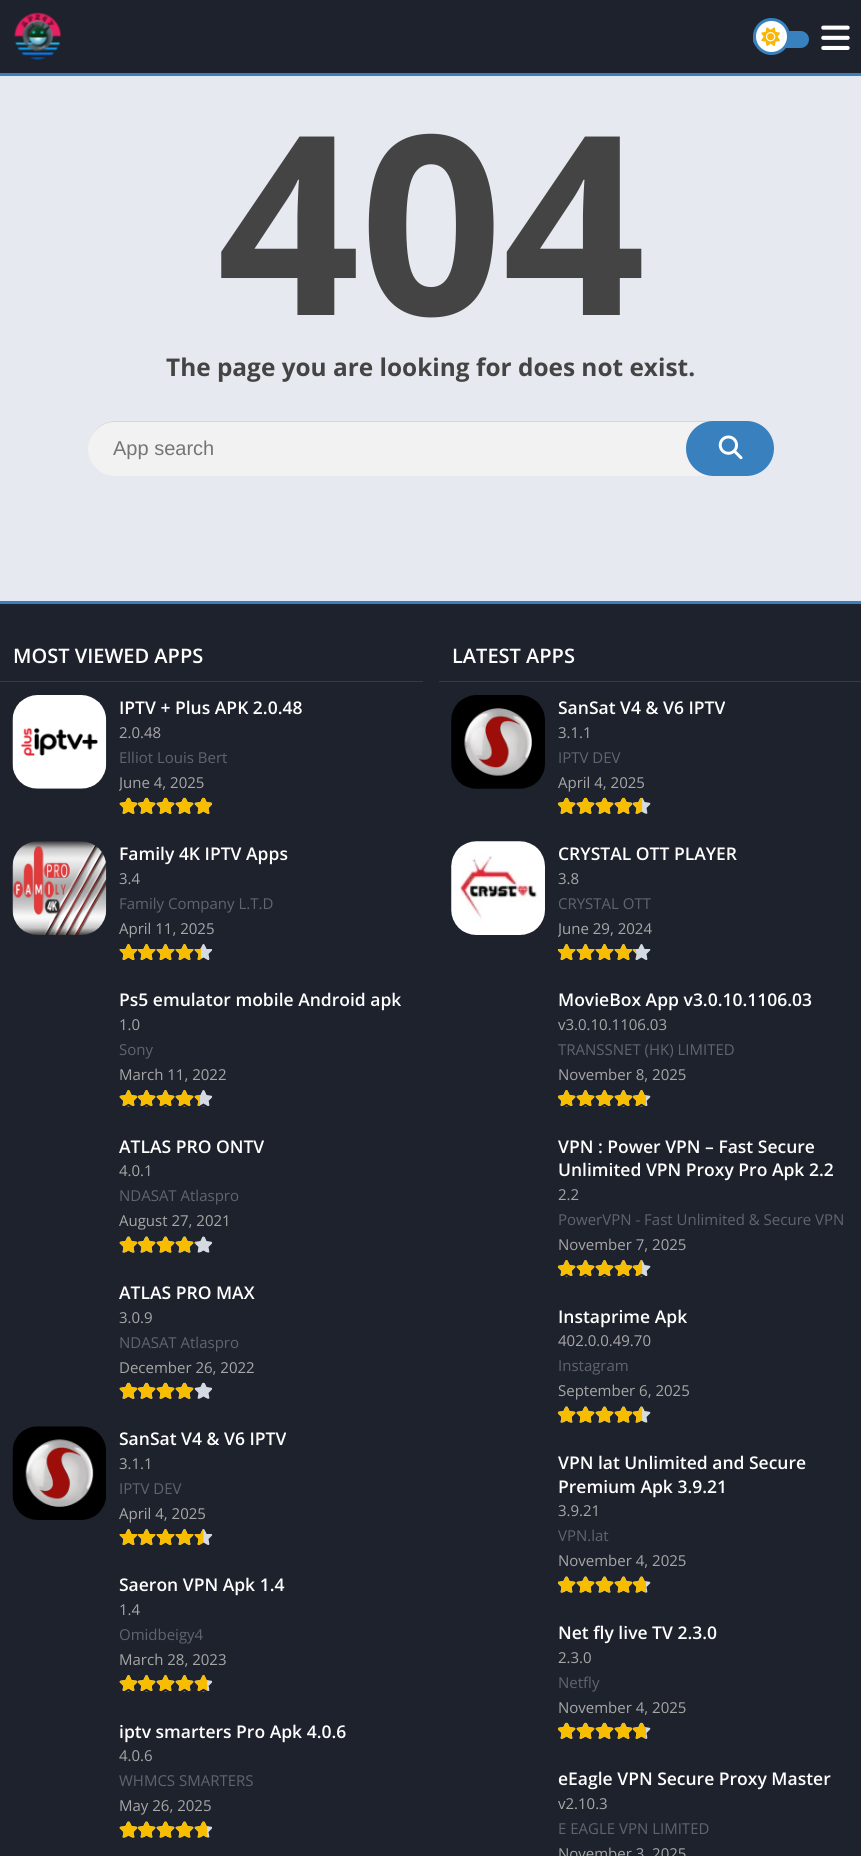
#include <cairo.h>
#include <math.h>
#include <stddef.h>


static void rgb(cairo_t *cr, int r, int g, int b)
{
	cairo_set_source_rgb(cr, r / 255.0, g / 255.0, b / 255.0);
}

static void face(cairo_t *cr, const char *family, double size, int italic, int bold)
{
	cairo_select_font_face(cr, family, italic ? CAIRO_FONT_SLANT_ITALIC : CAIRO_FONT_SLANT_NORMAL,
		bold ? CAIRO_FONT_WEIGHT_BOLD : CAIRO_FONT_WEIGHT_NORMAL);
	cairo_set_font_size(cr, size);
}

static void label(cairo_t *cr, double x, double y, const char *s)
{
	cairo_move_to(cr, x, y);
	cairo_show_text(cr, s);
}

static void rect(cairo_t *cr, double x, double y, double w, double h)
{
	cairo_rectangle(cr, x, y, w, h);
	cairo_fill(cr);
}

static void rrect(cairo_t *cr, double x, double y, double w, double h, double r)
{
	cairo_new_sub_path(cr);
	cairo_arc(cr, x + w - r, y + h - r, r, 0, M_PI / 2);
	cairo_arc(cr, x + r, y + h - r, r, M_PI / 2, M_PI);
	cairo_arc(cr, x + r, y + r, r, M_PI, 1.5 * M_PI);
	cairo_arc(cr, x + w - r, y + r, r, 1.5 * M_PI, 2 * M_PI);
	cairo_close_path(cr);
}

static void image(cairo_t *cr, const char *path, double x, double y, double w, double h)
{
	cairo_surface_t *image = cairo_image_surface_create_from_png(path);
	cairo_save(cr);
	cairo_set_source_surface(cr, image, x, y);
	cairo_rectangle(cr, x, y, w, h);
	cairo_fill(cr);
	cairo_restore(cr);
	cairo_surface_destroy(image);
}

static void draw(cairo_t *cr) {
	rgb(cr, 230, 233, 239);
	cairo_paint(cr);
	rgb(cr, 29, 34, 45);
	rect(cr, 0, 0, 861, 73);
	rgb(cr, 57, 128, 191);
	rect(cr, 0, 73, 861, 3);
	image(cr, "image0.png", 14, 12, 47, 48);
	rrect(cr, 753, 31, 56, 17, 8.5);
	cairo_fill(cr);
	rgb(cr, 255, 255, 255);
	cairo_arc(cr, 771.5, 36.5, 17, 0, 2 * M_PI);
	cairo_fill_preserve(cr);
	rgb(cr, 57, 128, 191);
	cairo_set_line_width(cr, 3);
	cairo_stroke(cr);
	image(cr, "image1.png", 761, 27, 19, 19);
	image(cr, "image2.png", 821, 25, 29, 25);
	face(cr, "Open Sans", 250, 0, 1);
	rgb(cr, 68, 68, 68);
	label(cr, 217, 315, "404");
	face(cr, "Open Sans", 24.4, 0, 1);
	label(cr, 166, 376, "The page you are looking for does not exist.");
	rgb(cr, 242, 242, 242);
	rrect(cr, 88, 421, 686, 55, 27.5);
	cairo_fill(cr);
	cairo_set_source_rgba(cr, 0, 0, 0, 0.12);
	cairo_new_path(cr);
	cairo_move_to(cr, 115, 422);
	cairo_line_to(cr, 746, 422);
	cairo_curve_to(cr, 761, 422, 774, 435, 774, 449);
	cairo_curve_to(cr, 774, 434, 762, 421, 746, 421);
	cairo_line_to(cr, 116, 421);
	cairo_curve_to(cr, 100, 421, 88, 434, 88, 449);
	cairo_curve_to(cr, 88, 435, 100, 422, 115, 422);
	cairo_close_path(cr);
	cairo_fill(cr);
	face(cr, "Liberation Sans", 20, 0, 0);
	rgb(cr, 117, 117, 117);
	label(cr, 113, 455, "App search");
	rgb(cr, 57, 128, 191);
	rrect(cr, 686, 421, 88, 55, 27.5);
	cairo_fill(cr);
	image(cr, "image3.png", 718, 435, 25, 25);
	rgb(cr, 29, 34, 45);
	rect(cr, 0, 604, 861, 1252);
	rgb(cr, 57, 128, 191);
	rect(cr, 0, 601, 861, 3);
	rgb(cr, 55, 59, 68);
	rect(cr, 0, 681, 423, 1);
	face(cr, "Open Sans SemiBold", 20, 0, 0);
	rgb(cr, 255, 255, 255);
	label(cr, 13, 663, "MOST VIEWED APPS");
	image(cr, "image4.png", 12, 695, 95, 94);
	face(cr, "Open Sans SemiBold", 17.5, 0, 0);
	label(cr, 119, 714, "IPTV + Plus APK 2.0.48");
	face(cr, "Open Sans", 15, 0, 0);
	rgb(cr, 167, 167, 167);
	label(cr, 119, 738, "2.0.48");
	rgb(cr, 97, 100, 108);
	label(cr, 119, 763, "Elliot Louis Bert");
	cairo_save(cr);
	cairo_rectangle(cr, 119, 771, 291, 23);
	cairo_clip(cr);
	rgb(cr, 167, 167, 167);
	label(cr, 119, 788, "June 4, 2025");
	cairo_restore(cr);
	image(cr, "image5.png", 119, 797, 94, 17);
	image(cr, "image6.png", 119, 797, 93, 17);
	image(cr, "image7.png", 12, 841, 95, 94);
	face(cr, "Open Sans SemiBold", 17.5, 0, 0);
	rgb(cr, 255, 255, 255);
	label(cr, 119, 860, "Family 4K IPTV Apps");
	face(cr, "Open Sans", 15, 0, 0);
	rgb(cr, 167, 167, 167);
	label(cr, 119, 884, "3.4");
	rgb(cr, 97, 100, 108);
	label(cr, 119, 909, "Family Company L.T.D");
	rgb(cr, 167, 167, 167);
	label(cr, 119, 934, "April 11, 2025");
	image(cr, "image8.png", 119, 944, 94, 16);
	image(cr, "image9.png", 119, 944, 82, 16);
	face(cr, "Open Sans SemiBold", 17.5, 0, 0);
	rgb(cr, 255, 255, 255);
	label(cr, 119, 1006, "Ps5 emulator mobile Android apk");
	face(cr, "Open Sans", 15, 0, 0);
	rgb(cr, 167, 167, 167);
	label(cr, 119, 1030, "1.0");
	rgb(cr, 97, 100, 108);
	label(cr, 119, 1055, "Sony");
	rgb(cr, 167, 167, 167);
	label(cr, 119, 1080, "March 11, 2022");
	image(cr, "image10.png", 119, 1090, 94, 17);
	image(cr, "image11.png", 119, 1090, 81, 17);
	face(cr, "Open Sans SemiBold", 17.5, 0, 0);
	rgb(cr, 255, 255, 255);
	label(cr, 119, 1153, "ATLAS PRO ONTV");
	face(cr, "Open Sans", 15, 0, 0);
	rgb(cr, 167, 167, 167);
	label(cr, 119, 1176, "4.0.1");
	rgb(cr, 97, 100, 108);
	label(cr, 119, 1201, "NDASAT Atlaspro");
	rgb(cr, 167, 167, 167);
	label(cr, 119, 1226, "August 27, 2021");
	image(cr, "image12.png", 119, 1236, 94, 17);
	image(cr, "image13.png", 119, 1236, 77, 17);
	face(cr, "Open Sans SemiBold", 17.5, 0, 0);
	rgb(cr, 255, 255, 255);
	label(cr, 119, 1299, "ATLAS PRO MAX");
	face(cr, "Open Sans", 15, 0, 0);
	rgb(cr, 167, 167, 167);
	label(cr, 119, 1323, "3.0.9");
	rgb(cr, 97, 100, 108);
	label(cr, 119, 1348, "NDASAT Atlaspro");
	rgb(cr, 167, 167, 167);
	label(cr, 119, 1373, "December 26, 2022");
	image(cr, "image5.png", 119, 1382, 94, 17);
	image(cr, "image14.png", 119, 1382, 75, 17);
	image(cr, "image15.png", 12, 1426, 94, 94);
	face(cr, "Open Sans SemiBold", 17.5, 0, 0);
	rgb(cr, 255, 255, 255);
	label(cr, 119, 1445, "SanSat V4 & V6 IPTV");
	face(cr, "Open Sans", 15, 0, 0);
	rgb(cr, 167, 167, 167);
	label(cr, 119, 1469, "3.1.1");
	rgb(cr, 97, 100, 108);
	label(cr, 119, 1494, "IPTV DEV");
	rgb(cr, 167, 167, 167);
	label(cr, 119, 1519, "April 4, 2025");
	image(cr, "image8.png", 119, 1529, 94, 16);
	image(cr, "image16.png", 119, 1529, 85, 16);
	face(cr, "Open Sans SemiBold", 17.5, 0, 0);
	rgb(cr, 255, 255, 255);
	label(cr, 119, 1591, "Saeron VPN Apk 1.4");
	face(cr, "Open Sans", 15, 0, 0);
	rgb(cr, 167, 167, 167);
	label(cr, 119, 1615, "1.4");
	rgb(cr, 97, 100, 108);
	label(cr, 119, 1640, "Omidbeigy4");
	rgb(cr, 167, 167, 167);
	label(cr, 119, 1665, "March 28, 2023");
	image(cr, "image10.png", 119, 1675, 94, 17);
	image(cr, "image17.png", 119, 1675, 89, 17);
	face(cr, "Open Sans SemiBold", 17.5, 0, 0);
	rgb(cr, 255, 255, 255);
	label(cr, 119, 1738, "iptv smarters Pro Apk 4.0.6");
	face(cr, "Open Sans", 15, 0, 0);
	rgb(cr, 167, 167, 167);
	label(cr, 119, 1761, "4.0.6");
	rgb(cr, 97, 100, 108);
	label(cr, 119, 1786, "WHMCS SMARTERS");
	rgb(cr, 167, 167, 167);
	label(cr, 119, 1811, "May 26, 2025");
	image(cr, "image12.png", 119, 1821, 94, 17);
	image(cr, "image18.png", 119, 1821, 89, 17);
	rgb(cr, 55, 59, 68);
	rect(cr, 439, 681, 422, 1);
	face(cr, "Open Sans SemiBold", 20, 0, 0);
	rgb(cr, 255, 255, 255);
	label(cr, 452, 663, "LATEST APPS");
	image(cr, "image19.png", 451, 695, 94, 94);
	face(cr, "Open Sans SemiBold", 17.5, 0, 0);
	label(cr, 558, 714, "SanSat V4 & V6 IPTV");
	face(cr, "Open Sans", 15, 0, 0);
	rgb(cr, 167, 167, 167);
	label(cr, 558, 738, "3.1.1");
	rgb(cr, 97, 100, 108);
	label(cr, 558, 763, "IPTV DEV");
	rgb(cr, 167, 167, 167);
	label(cr, 558, 788, "April 4, 2025");
	image(cr, "image20.png", 557, 797, 94, 17);
	image(cr, "image21.png", 558, 797, 85, 17);
	image(cr, "image22.png", 451, 841, 94, 94);
	face(cr, "Open Sans SemiBold", 17.5, 0, 0);
	rgb(cr, 255, 255, 255);
	label(cr, 558, 860, "CRYSTAL OTT PLAYER");
	face(cr, "Open Sans", 15, 0, 0);
	rgb(cr, 167, 167, 167);
	label(cr, 558, 884, "3.8");
	rgb(cr, 97, 100, 108);
	label(cr, 558, 909, "CRYSTAL OTT");
	cairo_save(cr);
	cairo_rectangle(cr, 558, 918, 291, 22);
	cairo_clip(cr);
	rgb(cr, 167, 167, 167);
	label(cr, 558, 934, "June 29, 2024");
	cairo_restore(cr);
	image(cr, "image23.png", 557, 944, 94, 16);
	image(cr, "image24.png", 558, 944, 79, 16);
	face(cr, "Open Sans SemiBold", 17.5, 0, 0);
	rgb(cr, 255, 255, 255);
	label(cr, 558, 1006, "MovieBox App v3.0.10.1106.03");
	face(cr, "Open Sans", 15, 0, 0);
	rgb(cr, 167, 167, 167);
	label(cr, 558, 1030, "v3.0.10.1106.03");
	rgb(cr, 97, 100, 108);
	label(cr, 558, 1055, "TRANSSNET (HK) LIMITED");
	rgb(cr, 167, 167, 167);
	label(cr, 558, 1080, "November 8, 2025");
	image(cr, "image25.png", 557, 1090, 94, 17);
	image(cr, "image26.png", 558, 1090, 88, 17);
	face(cr, "Open Sans SemiBold", 17.5, 0, 0);
	rgb(cr, 255, 255, 255);
	label(cr, 558, 1153, "VPN : Power VPN – Fast Secure");
	label(cr, 558, 1176, "Unlimited VPN Proxy Pro Apk 2.2");
	face(cr, "Open Sans", 15, 0, 0);
	rgb(cr, 167, 167, 167);
	label(cr, 558, 1200, "2.2");
	rgb(cr, 97, 100, 108);
	label(cr, 558, 1225, "PowerVPN - Fast Unlimited & Secure VPN");
	rgb(cr, 167, 167, 167);
	label(cr, 558, 1250, "November 7, 2025");
	image(cr, "image25.png", 557, 1260, 94, 17);
	image(cr, "image27.png", 558, 1260, 85, 17);
	face(cr, "Open Sans SemiBold", 17.5, 0, 0);
	rgb(cr, 255, 255, 255);
	label(cr, 558, 1323, "Instaprime Apk");
	face(cr, "Open Sans", 15, 0, 0);
	rgb(cr, 167, 167, 167);
	label(cr, 558, 1346, "402.0.0.49.70");
	rgb(cr, 97, 100, 108);
	label(cr, 558, 1371, "Instagram");
	rgb(cr, 167, 167, 167);
	label(cr, 558, 1396, "September 6, 2025");
	image(cr, "image28.png", 557, 1406, 94, 17);
	image(cr, "image29.png", 558, 1406, 85, 17);
	face(cr, "Open Sans SemiBold", 17.5, 0, 0);
	rgb(cr, 255, 255, 255);
	label(cr, 558, 1469, "VPN lat Unlimited and Secure");
	label(cr, 558, 1493, "Premium Apk 3.9.21");
	face(cr, "Open Sans", 15, 0, 0);
	rgb(cr, 167, 167, 167);
	label(cr, 558, 1516, "3.9.21");
	rgb(cr, 97, 100, 108);
	label(cr, 558, 1541, "VPN.lat");
	rgb(cr, 167, 167, 167);
	label(cr, 558, 1566, "November 4, 2025");
	image(cr, "image28.png", 557, 1576, 94, 17);
	image(cr, "image30.png", 558, 1576, 88, 17);
	face(cr, "Open Sans SemiBold", 17.5, 0, 0);
	rgb(cr, 255, 255, 255);
	label(cr, 558, 1639, "Net fly live TV 2.3.0");
	face(cr, "Open Sans", 15, 0, 0);
	rgb(cr, 167, 167, 167);
	label(cr, 558, 1663, "2.3.0");
	rgb(cr, 97, 100, 108);
	label(cr, 558, 1688, "Netfly");
	rgb(cr, 167, 167, 167);
	label(cr, 558, 1713, "November 4, 2025");
	image(cr, "image20.png", 557, 1722, 94, 17);
	image(cr, "image31.png", 558, 1722, 88, 17);
	face(cr, "Open Sans SemiBold", 17.5, 0, 0);
	rgb(cr, 255, 255, 255);
	label(cr, 558, 1785, "eEagle VPN Secure Proxy Master");
	face(cr, "Open Sans", 15, 0, 0);
	rgb(cr, 167, 167, 167);
	label(cr, 558, 1809, "v2.10.3");
	rgb(cr, 97, 100, 108);
	label(cr, 558, 1834, "E EAGLE VPN LIMITED");
	rgb(cr, 167, 167, 167);
	label(cr, 558, 1859, "November 3, 2025");
}

int main(void) {
	cairo_surface_t *surface = cairo_image_surface_create(CAIRO_FORMAT_RGB24, 861, 1856);
	cairo_t *cr = cairo_create(surface);
	cairo_font_options_t *options = cairo_font_options_create();
	cairo_font_options_set_hint_metrics(options, CAIRO_HINT_METRICS_OFF);
	cairo_font_options_set_hint_style(options, CAIRO_HINT_STYLE_NONE);
	cairo_set_font_options(cr, options);
	cairo_set_miter_limit(cr, 4);
	draw(cr);
	cairo_surface_write_to_png(surface, "render.png");
	cairo_font_options_destroy(options);
	cairo_destroy(cr);
	cairo_surface_destroy(surface);
	return 0;
}
